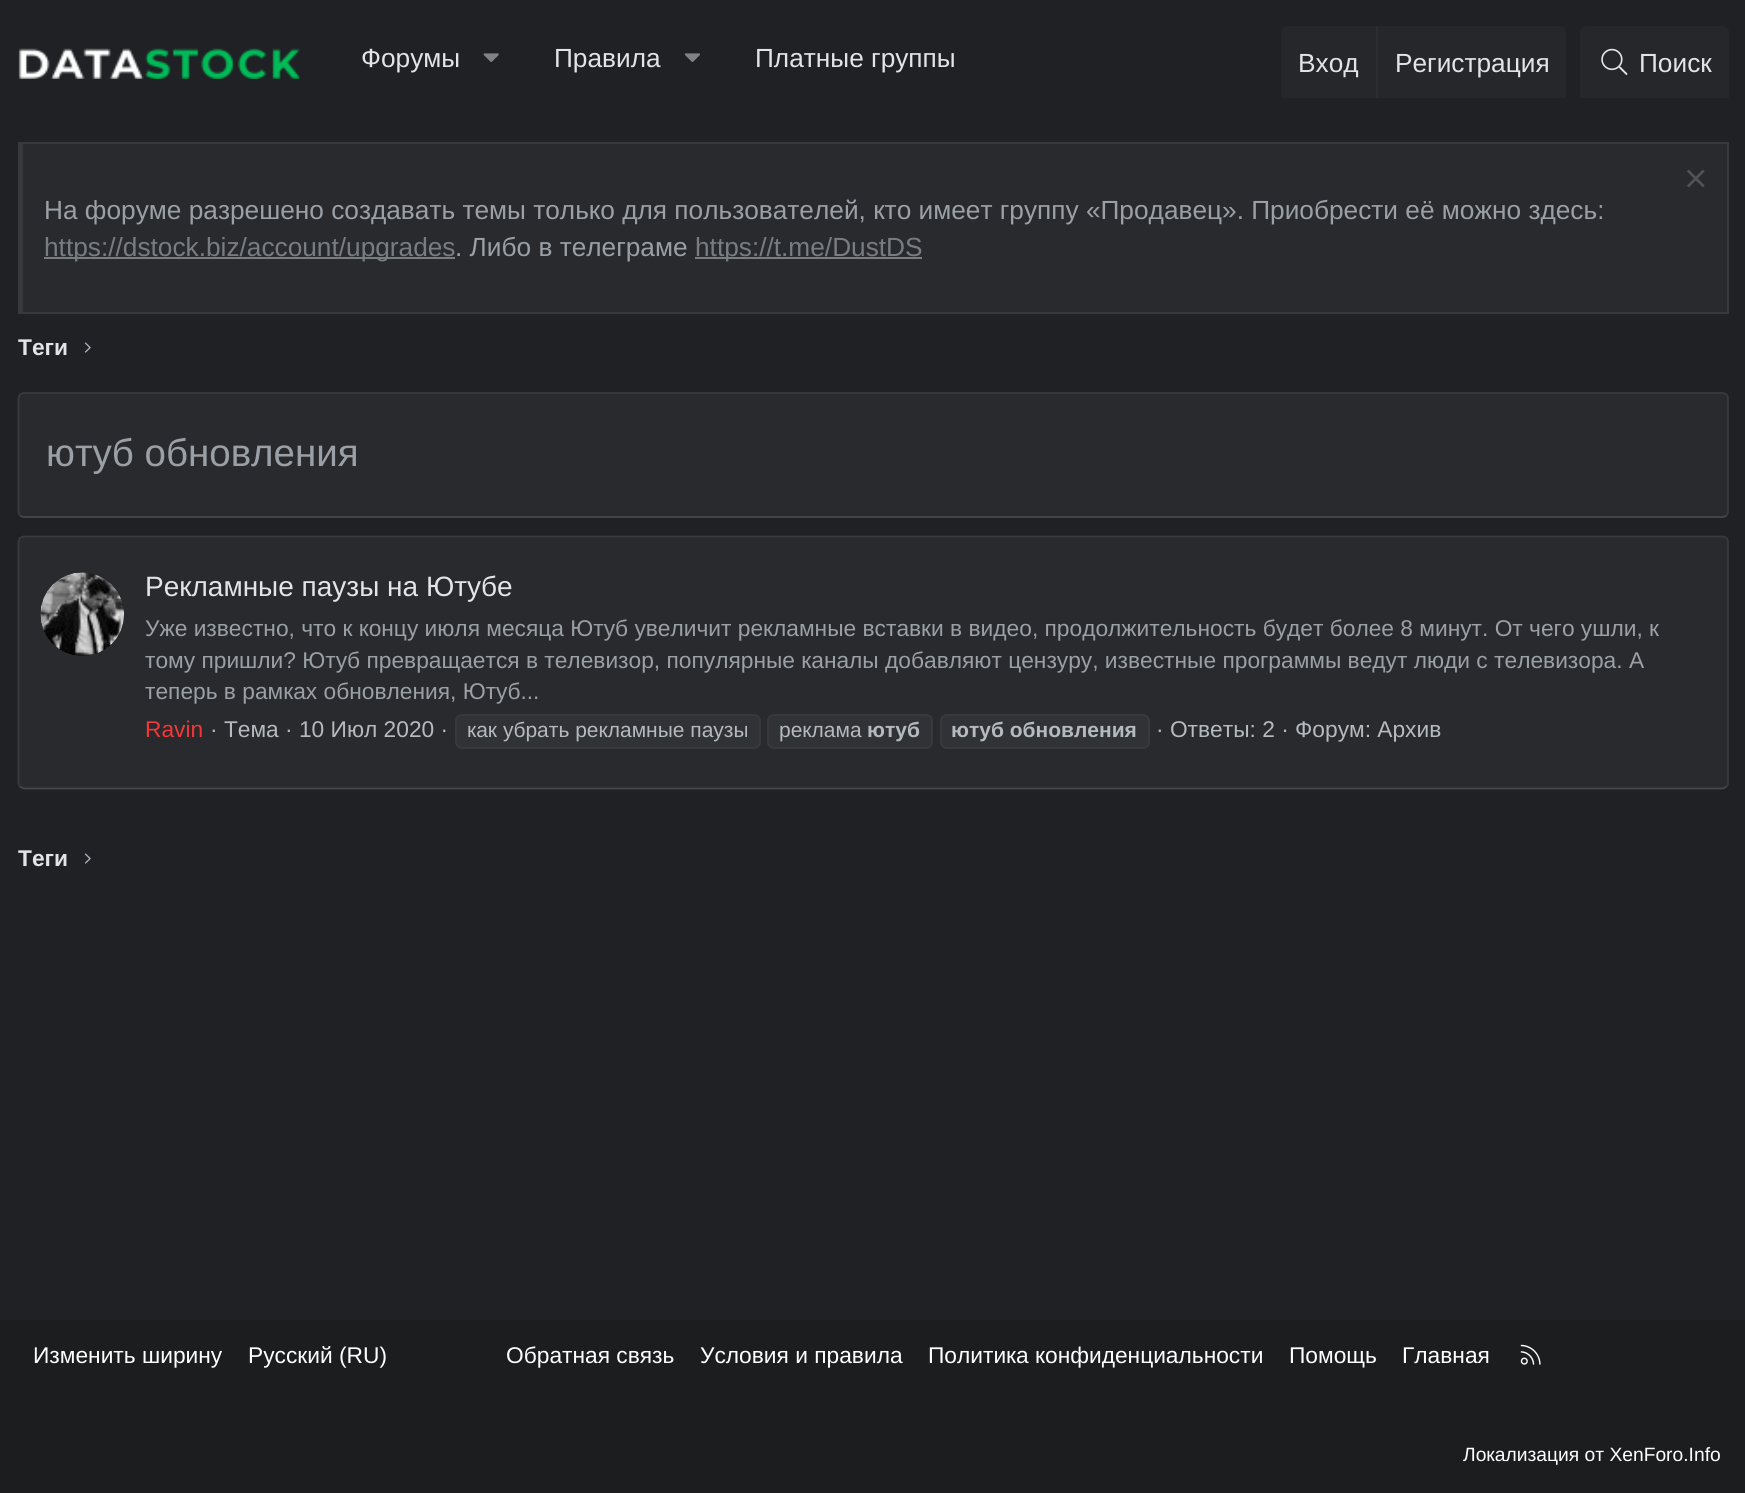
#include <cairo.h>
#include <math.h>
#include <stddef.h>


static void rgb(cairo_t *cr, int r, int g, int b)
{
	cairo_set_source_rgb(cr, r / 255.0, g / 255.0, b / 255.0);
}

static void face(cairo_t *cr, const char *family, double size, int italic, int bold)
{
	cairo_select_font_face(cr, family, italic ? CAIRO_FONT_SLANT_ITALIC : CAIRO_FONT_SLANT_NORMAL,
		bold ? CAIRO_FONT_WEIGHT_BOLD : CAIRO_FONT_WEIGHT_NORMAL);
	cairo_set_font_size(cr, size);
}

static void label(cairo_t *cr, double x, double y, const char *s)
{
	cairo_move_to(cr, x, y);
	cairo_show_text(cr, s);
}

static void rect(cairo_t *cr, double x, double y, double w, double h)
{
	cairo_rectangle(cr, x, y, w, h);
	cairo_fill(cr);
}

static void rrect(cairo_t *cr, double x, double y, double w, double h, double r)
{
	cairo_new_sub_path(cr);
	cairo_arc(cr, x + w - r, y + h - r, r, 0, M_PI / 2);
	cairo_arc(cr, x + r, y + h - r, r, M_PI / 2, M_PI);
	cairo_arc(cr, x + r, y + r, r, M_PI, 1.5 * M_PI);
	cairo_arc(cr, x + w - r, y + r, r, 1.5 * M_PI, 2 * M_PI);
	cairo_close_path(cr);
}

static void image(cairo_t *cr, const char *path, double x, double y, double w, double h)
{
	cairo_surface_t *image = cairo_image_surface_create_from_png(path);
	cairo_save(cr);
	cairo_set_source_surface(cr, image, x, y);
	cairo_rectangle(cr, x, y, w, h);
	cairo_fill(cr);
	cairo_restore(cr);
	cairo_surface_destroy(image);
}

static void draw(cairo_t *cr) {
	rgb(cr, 32, 33, 36);
	cairo_paint(cr);
	image(cr, "image0.png", 18, 48, 282, 31);
	face(cr, "Liberation Sans", 26.25, 0, 0);
	rgb(cr, 226, 228, 232);
	label(cr, 361, 67, "Форумы");
	image(cr, "image1.png", 483, 53, 16, 9);
	label(cr, 554, 67, "Правила");
	image(cr, "image2.png", 684, 53, 16, 9);
	label(cr, 755, 67, "Платные группы");
	rgb(cr, 38, 39, 43);
	cairo_new_path(cr);
	cairo_move_to(cr, 1288, 26);
	cairo_line_to(cr, 1559, 26);
	cairo_curve_to(cr, 1563, 26, 1566, 29, 1566, 33);
	cairo_line_to(cr, 1566, 98);
	cairo_line_to(cr, 1281, 98);
	cairo_line_to(cr, 1281, 33);
	cairo_curve_to(cr, 1281, 29, 1284, 26, 1288, 26);
	cairo_close_path(cr);
	cairo_fill(cr);
	rgb(cr, 226, 228, 232);
	label(cr, 1298, 72, "Вход");
	rgb(cr, 44, 45, 49);
	rect(cr, 1376, 26, 2, 72);
	rgb(cr, 226, 228, 232);
	label(cr, 1395, 72, "Регистрация");
	rgb(cr, 38, 39, 43);
	cairo_new_path(cr);
	cairo_move_to(cr, 1587, 26);
	cairo_line_to(cr, 1722, 26);
	cairo_curve_to(cr, 1726, 26, 1729, 29, 1729, 33);
	cairo_line_to(cr, 1729, 98);
	cairo_line_to(cr, 1580, 98);
	cairo_line_to(cr, 1580, 33);
	cairo_curve_to(cr, 1580, 29, 1583, 26, 1587, 26);
	cairo_close_path(cr);
	cairo_fill(cr);
	image(cr, "image3.png", 1601, 48, 27, 27);
	rgb(cr, 226, 228, 232);
	label(cr, 1639, 72, "Поиск");
	rgb(cr, 41, 42, 45);
	rect(cr, 23, 144, 1704, 168);
	rgb(cr, 57, 57, 59);
	rect(cr, 18, 142, 1711, 2);
	rect(cr, 1727, 142, 2, 171);
	rect(cr, 18, 312, 1711, 2);
	rect(cr, 18, 142, 5, 171);
	image(cr, "image4.png", 1687, 169, 18, 19);
	rgb(cr, 154, 160, 166);
	label(cr, 44, 219, "На форуме разрешено создавать темы только для пользователей, кто имеет группу «Продавец». Приобрести её можно здесь:");
	rgb(cr, 120, 125, 130);
	rect(cr, 44, 257, 411, 2);
	label(cr, 44, 256, "https://dstock.biz/account/upgrades");
	rgb(cr, 154, 160, 166);
	label(cr, 455, 256, ". Либо в телеграме");
	rgb(cr, 120, 125, 130);
	rect(cr, 695, 257, 227, 2);
	label(cr, 695, 256, "https://t.me/DustDS");
	cairo_save(cr);
	cairo_rectangle(cr, 18, 331, 50, 35);
	cairo_clip(cr);
	face(cr, "Liberation Sans", 22.75, 0, 1);
	rgb(cr, 226, 228, 232);
	label(cr, 18, 355, "Теги");
	cairo_restore(cr);
	image(cr, "image5.png", 84, 342, 7, 11);
	rgb(cr, 41, 42, 45);
	rrect(cr, 18, 392, 1711, 126, 7);
	cairo_fill(cr);
	cairo_new_path(cr);
	cairo_move_to(cr, 1726.5, 515.5);
	cairo_curve_to(cr, 1725, 516.5, 1723.5, 517, 1722, 517);
	cairo_line_to(cr, 24.5, 517);
	cairo_curve_to(cr, 23, 517, 21.5, 516.5, 20, 515.5);
	rgb(cr, 70, 70, 72);
	cairo_set_line_width(cr, 1.8);
	cairo_stroke(cr);
	cairo_new_path(cr);
	cairo_move_to(cr, 20, 515.5);
	cairo_curve_to(cr, 19, 514, 18.5, 512.5, 18.5, 511);
	cairo_line_to(cr, 18.5, 399);
	cairo_curve_to(cr, 18.5, 397.5, 19, 396, 20, 394.5);
	cairo_curve_to(cr, 21.5, 393.5, 23, 393, 24.5, 393);
	cairo_line_to(cr, 1722, 393);
	cairo_curve_to(cr, 1723.5, 393, 1725, 393.5, 1726.5, 394.5);
	cairo_curve_to(cr, 1727.5, 396, 1728, 397.5, 1728, 399);
	cairo_line_to(cr, 1728, 511);
	cairo_curve_to(cr, 1728, 512.5, 1727.5, 514, 1726.5, 515.5);
	rgb(cr, 57, 57, 59);
	cairo_stroke(cr);
	face(cr, "Liberation Sans", 38.5, 0, 0);
	rgb(cr, 154, 160, 166);
	label(cr, 46, 466, "ютуб обновления");
	rgb(cr, 41, 42, 45);
	rrect(cr, 18, 536, 1711, 253, 7);
	cairo_fill(cr);
	cairo_new_path(cr);
	cairo_move_to(cr, 1726.5, 786.5);
	cairo_curve_to(cr, 1725, 787.5, 1723.5, 788.5, 1722, 788.5);
	cairo_line_to(cr, 24.5, 788.5);
	cairo_curve_to(cr, 23, 788.5, 21.5, 787.5, 20, 786.5);
	rgb(cr, 70, 70, 72);
	cairo_stroke(cr);
	cairo_new_path(cr);
	cairo_move_to(cr, 20, 786.5);
	cairo_curve_to(cr, 19, 785.5, 18.5, 784, 18.5, 782);
	cairo_line_to(cr, 18.5, 542.5);
	cairo_curve_to(cr, 18.5, 541, 19, 539.5, 20, 538);
	cairo_curve_to(cr, 21.5, 537, 23, 536.5, 24.5, 536.5);
	cairo_line_to(cr, 1722, 536.5);
	cairo_curve_to(cr, 1723.5, 536.5, 1725, 537, 1726.5, 538);
	cairo_curve_to(cr, 1727.5, 539.5, 1728, 541, 1728, 542.5);
	cairo_line_to(cr, 1728, 782);
	cairo_curve_to(cr, 1728, 784, 1727.5, 785.5, 1726.5, 786.5);
	rgb(cr, 57, 57, 59);
	cairo_stroke(cr);
	image(cr, "image6.png", 40, 572, 84, 84);
	face(cr, "Liberation Sans", 28, 0, 0);
	rgb(cr, 226, 228, 232);
	label(cr, 145, 596, "Рекламные паузы на Ютубе");
	face(cr, "Liberation Sans", 22.75, 0, 0);
	rgb(cr, 154, 160, 166);
	label(cr, 145, 636, "Уже известно, что к концу июля месяца Ютуб увеличит рекламные вставки в видео, продолжительность будет более 8 минут. От чего ушли, к");
	label(cr, 145, 668, "тому пришли? Ютуб превращается в телевизор, популярные каналы добавляют цензуру, известные программы ведут люди с телевизора. А");
	label(cr, 145, 699, "теперь в рамках обновления, Ютуб...");
	rgb(cr, 241, 55, 55);
	label(cr, 145, 737, "Ravin");
	rgb(cr, 181, 186, 190);
	label(cr, 210, 737, "· Тема · 10 Июл 2020 ·");
	rgb(cr, 48, 50, 53);
	rrect(cr, 456, 715, 304, 33, 6);
	cairo_fill_preserve(cr);
	rgb(cr, 57, 57, 59);
	cairo_set_line_width(cr, 2);
	cairo_stroke(cr);
	face(cr, "Liberation Sans", 21, 0, 0);
	rgb(cr, 181, 186, 190);
	label(cr, 467, 737, "как убрать рекламные паузы");
	rgb(cr, 48, 50, 53);
	rrect(cr, 768, 715, 164, 33, 6);
	cairo_fill_preserve(cr);
	rgb(cr, 57, 57, 59);
	cairo_stroke(cr);
	rgb(cr, 181, 186, 190);
	label(cr, 779, 737, "реклама");
	face(cr, "Liberation Sans", 21, 0, 1);
	label(cr, 867, 737, "ютуб");
	rgb(cr, 48, 50, 53);
	rrect(cr, 941, 715, 208, 33, 6);
	cairo_fill_preserve(cr);
	rgb(cr, 57, 57, 59);
	cairo_stroke(cr);
	rgb(cr, 181, 186, 190);
	label(cr, 951, 737, "ютуб обновления");
	face(cr, "Liberation Sans", 22.75, 0, 0);
	label(cr, 1156, 737, "· Ответы: 2 · Форум: Архив");
	cairo_save(cr);
	cairo_rectangle(cr, 18, 842, 50, 33);
	cairo_clip(cr);
	face(cr, "Liberation Sans", 22.75, 0, 1);
	rgb(cr, 226, 228, 232);
	label(cr, 18, 866, "Теги");
	cairo_restore(cr);
	image(cr, "image5.png", 84, 853, 7, 11);
	rgb(cr, 28, 29, 31);
	rect(cr, 0, 1320, 1745, 173);
	rgb(cr, 255, 255, 255);
	label(cr, 33, 1363, "Изменить ширину");
	label(cr, 248, 1363, "Русский (RU)");
	label(cr, 506, 1363, "Обратная связь");
	label(cr, 700, 1363, "Условия и правила");
	label(cr, 928, 1363, "Политика конфиденциальности");
	label(cr, 1289, 1363, "Помощь");
	label(cr, 1402, 1363, "Главная");
	image(cr, "image7.png", 1520, 1344, 21, 21);
	face(cr, "Liberation Sans", 19.25, 0, 0);
	label(cr, 1463, 1461, "Локализация от XenForo.Info");
}

int main(void) {
	cairo_surface_t *surface = cairo_image_surface_create(CAIRO_FORMAT_RGB24, 1745, 1493);
	cairo_t *cr = cairo_create(surface);
	cairo_font_options_t *options = cairo_font_options_create();
	cairo_font_options_set_hint_metrics(options, CAIRO_HINT_METRICS_OFF);
	cairo_font_options_set_hint_style(options, CAIRO_HINT_STYLE_NONE);
	cairo_set_font_options(cr, options);
	cairo_set_miter_limit(cr, 4);
	draw(cr);
	cairo_surface_write_to_png(surface, "render.png");
	cairo_font_options_destroy(options);
	cairo_destroy(cr);
	cairo_surface_destroy(surface);
	return 0;
}
